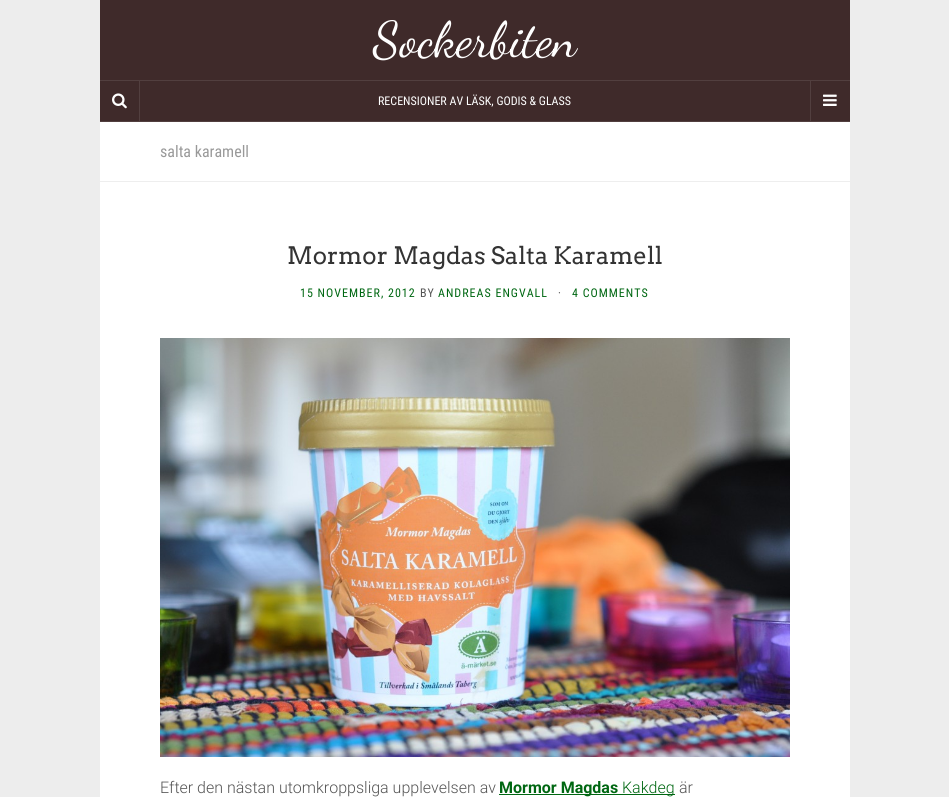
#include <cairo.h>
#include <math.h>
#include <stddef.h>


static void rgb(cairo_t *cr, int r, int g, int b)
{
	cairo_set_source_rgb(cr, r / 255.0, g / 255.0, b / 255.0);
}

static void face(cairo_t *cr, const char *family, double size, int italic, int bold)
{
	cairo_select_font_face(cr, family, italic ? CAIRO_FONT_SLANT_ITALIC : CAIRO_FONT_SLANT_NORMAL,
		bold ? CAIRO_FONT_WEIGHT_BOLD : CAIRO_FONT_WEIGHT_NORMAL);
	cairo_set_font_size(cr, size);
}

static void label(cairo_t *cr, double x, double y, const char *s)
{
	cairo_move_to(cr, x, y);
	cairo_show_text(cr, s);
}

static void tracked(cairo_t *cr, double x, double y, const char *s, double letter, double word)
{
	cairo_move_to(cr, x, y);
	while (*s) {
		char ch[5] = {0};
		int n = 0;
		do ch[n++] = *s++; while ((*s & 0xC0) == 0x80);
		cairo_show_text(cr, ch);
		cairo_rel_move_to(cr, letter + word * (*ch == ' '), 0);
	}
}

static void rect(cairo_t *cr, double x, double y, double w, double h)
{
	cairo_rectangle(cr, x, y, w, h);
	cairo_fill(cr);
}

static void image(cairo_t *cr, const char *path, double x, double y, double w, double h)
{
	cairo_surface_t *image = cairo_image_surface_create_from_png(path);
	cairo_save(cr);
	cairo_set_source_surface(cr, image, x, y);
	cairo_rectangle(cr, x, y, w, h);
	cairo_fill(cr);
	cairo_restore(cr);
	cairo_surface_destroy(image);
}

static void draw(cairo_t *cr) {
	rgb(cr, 237, 237, 237);
	cairo_paint(cr);
	rgb(cr, 63, 42, 42);
	rect(cr, 100, 0, 750, 121);
	rgb(cr, 82, 63, 63);
	rect(cr, 139, 81, 1, 40);
	image(cr, "image0.png", 112, 93, 15, 16);
	rect(cr, 100, 121, 750, 1);
	rect(cr, 100, 80, 750, 1);
	face(cr, "Dancing Script", 50, 0, 0);
	rgb(cr, 255, 255, 255);
	label(cr, 373, 56, "Sockerbiten");
	face(cr, "Roboto Condensed", 12, 0, 0);
	label(cr, 378, 105, "RECENSIONER AV LÄSK, GODIS & GLASS");
	rgb(cr, 82, 63, 63);
	rect(cr, 810, 81, 1, 40);
	image(cr, "image1.png", 823, 94, 14, 12);
	rgb(cr, 255, 255, 255);
	rect(cr, 100, 122, 750, 675);
	rgb(cr, 238, 238, 238);
	rect(cr, 100, 181, 750, 1);
	face(cr, "Roboto Condensed", 16, 0, 0);
	rgb(cr, 153, 153, 153);
	label(cr, 160, 157, "salta karamell");
	face(cr, "Arvo", 24, 0, 0);
	rgb(cr, 51, 51, 51);
	label(cr, 287, 264, "Mormor Magdas Salta Karamell");
	face(cr, "Roboto Condensed", 12, 0, 0);
	rgb(cr, 0, 103, 18);
	tracked(cr, 300, 297, "15 NOVEMBER, 2012", 1, 0);
	rgb(cr, 85, 85, 85);
	tracked(cr, 420, 297, "BY", 1, 0);
	rgb(cr, 0, 103, 18);
	tracked(cr, 438, 297, "ANDREAS ENGVALL", 1, 0);
	rgb(cr, 85, 85, 85);
	tracked(cr, 558, 297, "·", 1, 0);
	rgb(cr, 0, 103, 18);
	tracked(cr, 572, 297, "4 COMMENTS", 1, 0);
	image(cr, "image2.png", 160, 338, 630, 419);
	face(cr, "Roboto Light", 16, 0, 0);
	rgb(cr, 85, 85, 85);
	label(cr, 160, 793, "Efter den nästan utomkroppsliga upplevelsen av");
	rgb(cr, 0, 103, 18);
	rect(cr, 499, 794, 176, 1);
	face(cr, "Roboto", 16, 0, 1);
	label(cr, 499, 793, "Mormor Magdas");
	face(cr, "Roboto Light", 16, 0, 0);
	label(cr, 622, 793, "Kakdeg");
	rgb(cr, 85, 85, 85);
	label(cr, 679, 793, "är");
}

int main(void) {
	cairo_surface_t *surface = cairo_image_surface_create(CAIRO_FORMAT_RGB24, 949, 797);
	cairo_t *cr = cairo_create(surface);
	cairo_font_options_t *options = cairo_font_options_create();
	cairo_font_options_set_hint_metrics(options, CAIRO_HINT_METRICS_OFF);
	cairo_font_options_set_hint_style(options, CAIRO_HINT_STYLE_NONE);
	cairo_set_font_options(cr, options);
	cairo_set_miter_limit(cr, 4);
	draw(cr);
	cairo_surface_write_to_png(surface, "render.png");
	cairo_font_options_destroy(options);
	cairo_destroy(cr);
	cairo_surface_destroy(surface);
	return 0;
}
